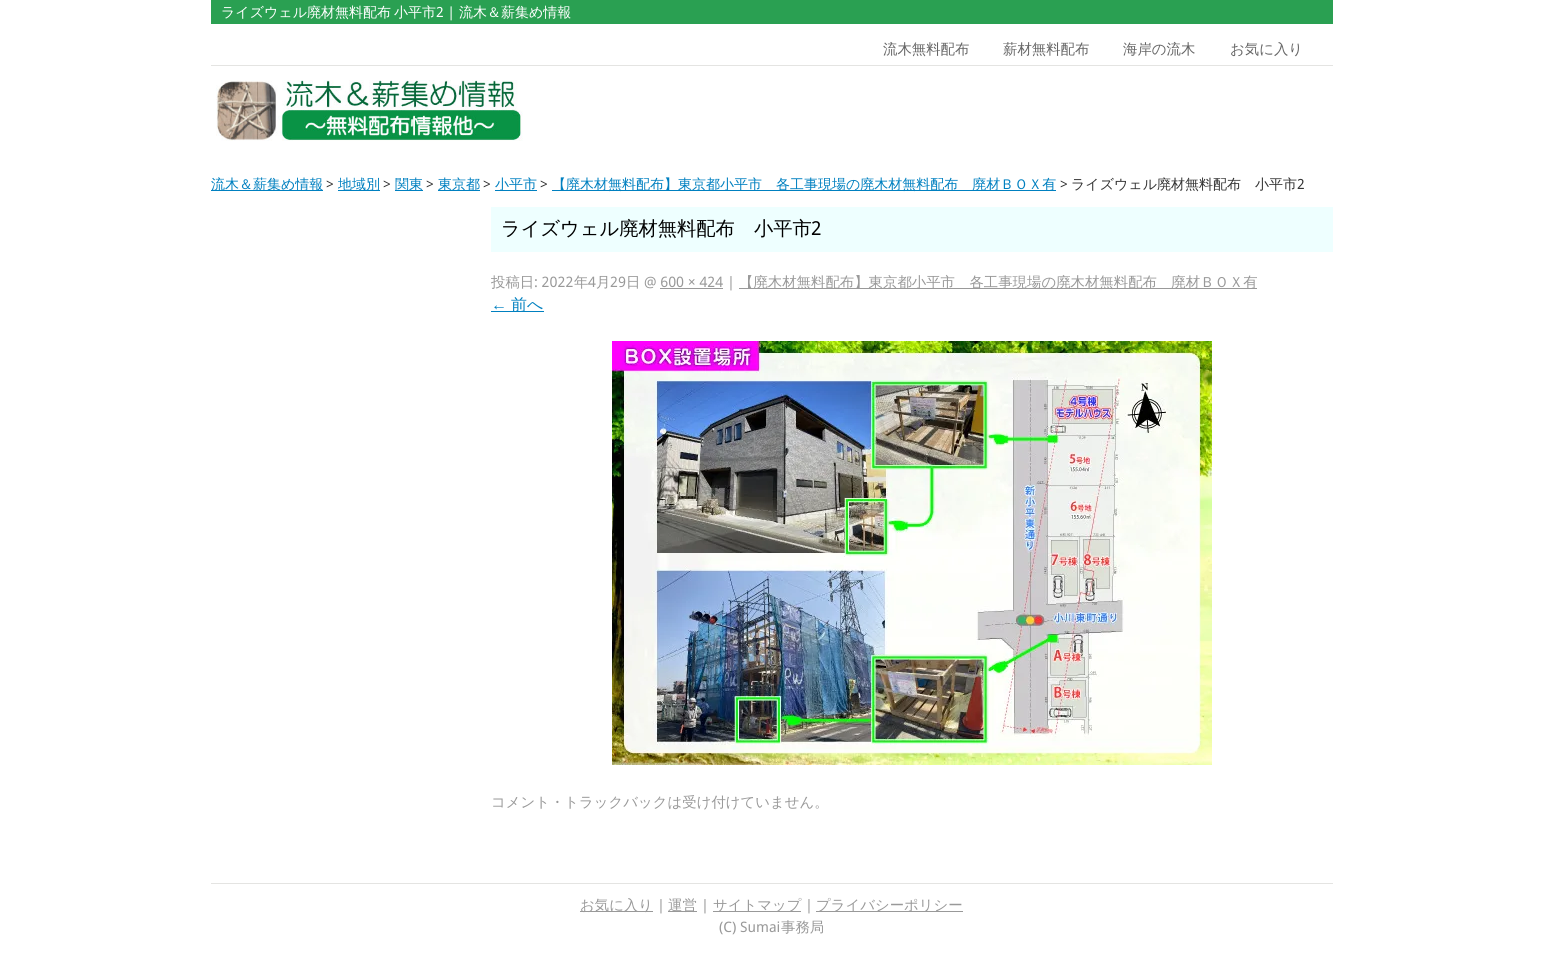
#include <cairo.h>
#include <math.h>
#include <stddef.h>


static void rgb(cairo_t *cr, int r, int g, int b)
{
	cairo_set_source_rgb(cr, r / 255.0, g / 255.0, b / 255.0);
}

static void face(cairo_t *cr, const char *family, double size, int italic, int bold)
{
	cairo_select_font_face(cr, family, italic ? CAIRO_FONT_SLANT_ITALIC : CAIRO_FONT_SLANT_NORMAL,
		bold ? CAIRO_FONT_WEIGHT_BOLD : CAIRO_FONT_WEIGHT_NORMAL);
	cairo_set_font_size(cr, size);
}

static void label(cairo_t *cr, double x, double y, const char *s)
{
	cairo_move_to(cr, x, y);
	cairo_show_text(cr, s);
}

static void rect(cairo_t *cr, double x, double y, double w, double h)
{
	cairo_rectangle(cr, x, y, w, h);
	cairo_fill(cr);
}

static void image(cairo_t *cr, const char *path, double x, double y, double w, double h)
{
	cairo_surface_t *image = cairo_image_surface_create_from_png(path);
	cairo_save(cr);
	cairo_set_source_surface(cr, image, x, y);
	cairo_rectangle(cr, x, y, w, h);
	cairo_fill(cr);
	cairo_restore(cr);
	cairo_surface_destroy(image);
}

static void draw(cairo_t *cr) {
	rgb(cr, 255, 255, 255);
	cairo_paint(cr);
	rgb(cr, 42, 160, 82);
	rect(cr, 211, 0, 1122, 24);
	face(cr, "WenQuanYi Zen Hei Medium", 14, 0, 0);
	rgb(cr, 255, 255, 255);
	label(cr, 221, 17, "ライズウェル廃材無料配布");
	label(cr, 394, 17, "小平市");
	face(cr, "Droid Sans", 14, 0, 0);
	label(cr, 436, 17, "2 |");
	face(cr, "WenQuanYi Zen Hei Medium", 14, 0, 0);
	label(cr, 459, 17, "流木＆薪集め情報");
	rgb(cr, 228, 228, 226);
	rect(cr, 211, 65, 1122, 1);
	face(cr, "WenQuanYi Zen Hei Medium", 14.4, 0, 0);
	rgb(cr, 102, 102, 102);
	label(cr, 883, 54, "流木無料配布");
	label(cr, 1003, 54, "薪材無料配布");
	label(cr, 1123, 54, "海岸の流木");
	label(cr, 1230, 54, "お気に入り");
	image(cr, "image0.png", 216, 80, 307, 61);
	rgb(cr, 0, 128, 192);
	rect(cr, 211, 190, 112, 1);
	face(cr, "WenQuanYi Zen Hei Medium", 14, 0, 0);
	label(cr, 211, 189, "流木＆薪集め情報");
	face(cr, "Droid Sans", 14, 0, 0);
	rgb(cr, 51, 51, 51);
	label(cr, 326, 189, ">");
	rgb(cr, 0, 128, 192);
	rect(cr, 338, 190, 42, 1);
	face(cr, "WenQuanYi Zen Hei Medium", 14, 0, 0);
	label(cr, 338, 189, "地域別");
	face(cr, "Droid Sans", 14, 0, 0);
	rgb(cr, 51, 51, 51);
	label(cr, 383, 189, ">");
	rgb(cr, 0, 128, 192);
	rect(cr, 395, 190, 28, 1);
	face(cr, "WenQuanYi Zen Hei Medium", 14, 0, 0);
	label(cr, 395, 189, "関東");
	face(cr, "Droid Sans", 14, 0, 0);
	rgb(cr, 51, 51, 51);
	label(cr, 426, 189, ">");
	rgb(cr, 0, 128, 192);
	rect(cr, 438, 190, 42, 1);
	face(cr, "WenQuanYi Zen Hei Medium", 14, 0, 0);
	label(cr, 438, 189, "東京都");
	face(cr, "Droid Sans", 14, 0, 0);
	rgb(cr, 51, 51, 51);
	label(cr, 483, 189, ">");
	rgb(cr, 0, 128, 192);
	rect(cr, 495, 190, 42, 1);
	face(cr, "WenQuanYi Zen Hei Medium", 14, 0, 0);
	label(cr, 495, 189, "小平市");
	face(cr, "Droid Sans", 14, 0, 0);
	rgb(cr, 51, 51, 51);
	label(cr, 540, 189, ">");
	rgb(cr, 0, 128, 192);
	rect(cr, 552, 190, 504, 1);
	face(cr, "WenQuanYi Zen Hei Medium", 14, 0, 0);
	label(cr, 552, 189, "【廃木材無料配布】東京都小平市　各工事現場の廃木材無料配布　廃材ＢＯＸ有");
	face(cr, "Droid Sans", 14, 0, 0);
	rgb(cr, 51, 51, 51);
	label(cr, 1060, 189, ">");
	face(cr, "WenQuanYi Zen Hei Medium", 14, 0, 0);
	label(cr, 1071, 189, "ライズウェル廃材無料配布　小平市");
	face(cr, "Droid Sans", 14, 0, 0);
	label(cr, 1297, 189, "2");
	rgb(cr, 238, 255, 255);
	rect(cr, 491, 207, 842, 45);
	face(cr, "WenQuanYi Zen Hei Medium", 19.25, 0, 0);
	rgb(cr, 0, 0, 0);
	label(cr, 501, 235, "ライズウェル廃材無料配布　小平市");
	face(cr, "Droid Sans", 19.25, 0, 0);
	label(cr, 811, 235, "2");
	face(cr, "WenQuanYi Zen Hei Medium", 14.4, 0, 0);
	rgb(cr, 153, 153, 153);
	label(cr, 491, 287, "投稿日");
	face(cr, "Droid Sans", 14.4, 0, 0);
	label(cr, 534, 287, ": 2022");
	face(cr, "WenQuanYi Zen Hei Medium", 14.4, 0, 0);
	label(cr, 574, 287, "年");
	face(cr, "Droid Sans", 14.4, 0, 0);
	label(cr, 588, 287, "4");
	face(cr, "WenQuanYi Zen Hei Medium", 14.4, 0, 0);
	label(cr, 596, 287, "月");
	face(cr, "Droid Sans", 14.4, 0, 0);
	label(cr, 610, 287, "29");
	face(cr, "WenQuanYi Zen Hei Medium", 14.4, 0, 0);
	label(cr, 626, 287, "日");
	face(cr, "Droid Sans", 14.4, 0, 0);
	label(cr, 644, 287, "@ 600 × 424 |");
	rect(cr, 739, 288, 518, 1);
	face(cr, "WenQuanYi Zen Hei Medium", 14.4, 0, 0);
	label(cr, 739, 287, "【廃木材無料配布】東京都小平市　各工事現場の廃木材無料配布　廃材ＢＯＸ有");
	rect(cr, 660, 288, 63, 1);
	face(cr, "Liberation Sans", 16, 0, 0);
	rgb(cr, 0, 128, 192);
	label(cr, 491, 310, "←");
	rect(cr, 491, 311, 53, 1);
	face(cr, "WenQuanYi Zen Hei Medium", 16, 0, 0);
	label(cr, 511, 310, "前へ");
	image(cr, "image1.png", 612, 341, 600, 424);
	face(cr, "WenQuanYi Zen Hei Medium", 14.4, 0, 0);
	rgb(cr, 153, 153, 153);
	label(cr, 491, 807, "コメント・トラックバックは受け付けていません。");
	rgb(cr, 228, 228, 226);
	rect(cr, 211, 883, 1122, 1);
	rgb(cr, 153, 153, 153);
	rect(cr, 580, 911, 73, 1);
	label(cr, 580, 910, "お気に入り");
	face(cr, "Droid Sans", 14.4, 0, 0);
	label(cr, 657, 910, "|");
	rect(cr, 668, 911, 29, 1);
	face(cr, "WenQuanYi Zen Hei Medium", 14.4, 0, 0);
	label(cr, 668, 910, "運営");
	face(cr, "Droid Sans", 14.4, 0, 0);
	label(cr, 701, 910, "|");
	rect(cr, 713, 911, 88, 1);
	face(cr, "WenQuanYi Zen Hei Medium", 14.4, 0, 0);
	label(cr, 713, 910, "サイトマップ");
	face(cr, "Droid Sans", 14.4, 0, 0);
	label(cr, 805, 910, "|");
	rect(cr, 816, 911, 147, 1);
	face(cr, "WenQuanYi Zen Hei Medium", 14.4, 0, 0);
	label(cr, 816, 910, "プライバシーポリシー");
	face(cr, "Droid Sans", 14.4, 0, 0);
	label(cr, 719, 932, "(C) Sumai");
	face(cr, "WenQuanYi Zen Hei Medium", 14.4, 0, 0);
	label(cr, 781, 932, "事務局");
}

int main(void) {
	cairo_surface_t *surface = cairo_image_surface_create(CAIRO_FORMAT_RGB24, 1543, 958);
	cairo_t *cr = cairo_create(surface);
	cairo_font_options_t *options = cairo_font_options_create();
	cairo_font_options_set_hint_metrics(options, CAIRO_HINT_METRICS_OFF);
	cairo_font_options_set_hint_style(options, CAIRO_HINT_STYLE_NONE);
	cairo_set_font_options(cr, options);
	cairo_set_miter_limit(cr, 4);
	draw(cr);
	cairo_surface_write_to_png(surface, "render.png");
	cairo_font_options_destroy(options);
	cairo_destroy(cr);
	cairo_surface_destroy(surface);
	return 0;
}
